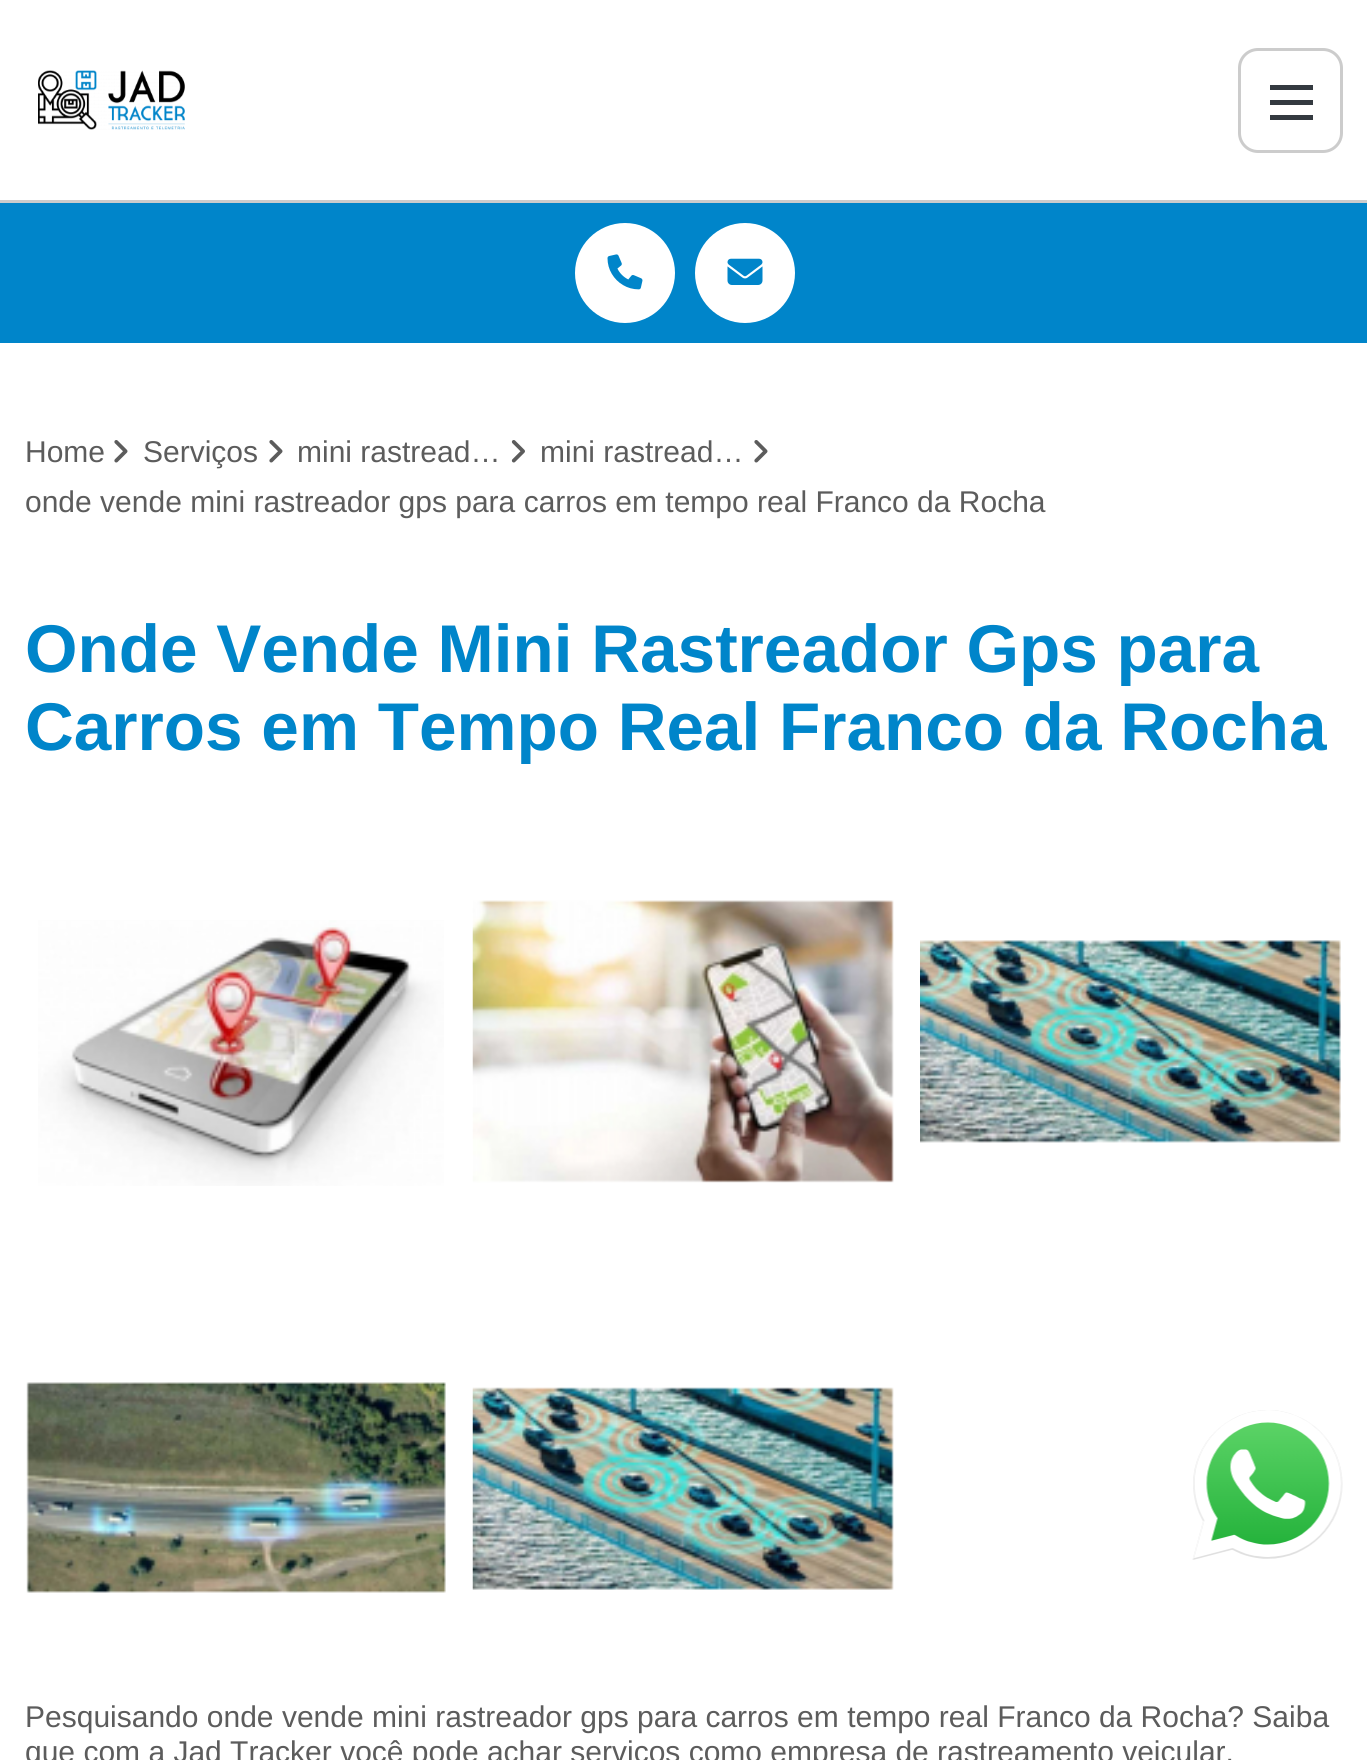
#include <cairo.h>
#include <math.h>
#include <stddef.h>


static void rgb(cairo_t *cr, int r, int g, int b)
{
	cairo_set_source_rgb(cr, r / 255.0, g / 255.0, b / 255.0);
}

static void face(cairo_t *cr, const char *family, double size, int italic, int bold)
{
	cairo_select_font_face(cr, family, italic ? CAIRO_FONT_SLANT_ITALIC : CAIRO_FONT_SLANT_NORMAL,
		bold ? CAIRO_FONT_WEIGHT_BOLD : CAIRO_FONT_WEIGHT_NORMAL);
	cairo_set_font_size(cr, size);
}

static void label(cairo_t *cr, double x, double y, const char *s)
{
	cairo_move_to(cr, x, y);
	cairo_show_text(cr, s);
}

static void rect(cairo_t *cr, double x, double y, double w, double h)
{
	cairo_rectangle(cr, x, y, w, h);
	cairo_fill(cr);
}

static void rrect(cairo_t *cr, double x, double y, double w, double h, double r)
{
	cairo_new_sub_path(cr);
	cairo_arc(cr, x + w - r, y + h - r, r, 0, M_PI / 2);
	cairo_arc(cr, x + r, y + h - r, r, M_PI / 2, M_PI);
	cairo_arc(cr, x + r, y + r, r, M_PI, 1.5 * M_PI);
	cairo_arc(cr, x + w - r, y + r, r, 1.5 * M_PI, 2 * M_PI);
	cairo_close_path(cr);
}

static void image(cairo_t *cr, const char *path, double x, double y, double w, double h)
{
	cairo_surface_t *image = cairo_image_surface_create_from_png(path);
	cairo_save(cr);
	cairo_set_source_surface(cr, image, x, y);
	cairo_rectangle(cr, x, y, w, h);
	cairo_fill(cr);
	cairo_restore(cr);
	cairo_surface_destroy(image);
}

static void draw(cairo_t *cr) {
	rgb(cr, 255, 255, 255);
	cairo_paint(cr);
	rgb(cr, 204, 204, 204);
	rect(cr, 0, 200, 1367, 3);
	image(cr, "image0.png", 38, 70, 147, 60);
	rrect(cr, 1239.5, 49.5, 102, 102, 18.5);
	cairo_set_line_width(cr, 3);
	cairo_stroke(cr);
	rgb(cr, 52, 58, 64);
	rect(cr, 1270, 85, 43, 5);
	rect(cr, 1270, 100, 43, 5);
	rect(cr, 1270, 115, 43, 5);
	rgb(cr, 0, 133, 202);
	rect(cr, 0, 203, 1367, 140);
	rgb(cr, 255, 255, 255);
	cairo_arc(cr, 625, 273, 50, 0, 2 * M_PI);
	cairo_fill(cr);
	image(cr, "image1.png", 607, 254, 36, 36);
	cairo_arc(cr, 745, 273, 50, 0, 2 * M_PI);
	cairo_fill(cr);
	image(cr, "image2.png", 727, 258, 36, 27);
	face(cr, "Liberation Sans", 30, 0, 0);
	rgb(cr, 92, 92, 92);
	label(cr, 25, 462, "Home");
	image(cr, "image3.png", 114, 440, 14, 23);
	label(cr, 143, 462, "Serviços");
	image(cr, "image3.png", 269, 440, 14, 23);
	label(cr, 297, 462, "mini rastread…");
	image(cr, "image4.png", 511, 440, 14, 23);
	label(cr, 540, 462, "mini rastread…");
	image(cr, "image3.png", 754, 440, 14, 23);
	label(cr, 25, 512, "onde vende mini rastreador gps para carros em tempo real Franco da Rocha");
	face(cr, "Liberation Sans", 67.5, 0, 1);
	rgb(cr, 0, 133, 202);
	label(cr, 25, 672, "Onde Vende Mini Rastreador Gps para");
	label(cr, 25, 750, "Carros em Tempo Real Franco da Rocha");
	image(cr, "image5.png", 38, 920, 406, 266);
	image(cr, "image6.png", 472, 900, 422, 283);
	image(cr, "image7.png", 920, 940, 421, 203);
	image(cr, "image8.png", 26, 1382, 420, 211);
	image(cr, "image9.png", 472, 1387, 422, 203);
	face(cr, "Liberation Sans", 30, 0, 0);
	rgb(cr, 92, 92, 92);
	label(cr, 25, 1727, "Pesquisando onde vende mini rastreador gps para carros em tempo real Franco da Rocha? Saiba");
	label(cr, 25, 1762, "que com a Jad Tracker você pode achar serviços como empresa de rastreamento veicular,");
	image(cr, "image10.png", 1192, 1410, 151, 150);
}

int main(void) {
	cairo_surface_t *surface = cairo_image_surface_create(CAIRO_FORMAT_RGB24, 1367, 1760);
	cairo_t *cr = cairo_create(surface);
	cairo_font_options_t *options = cairo_font_options_create();
	cairo_font_options_set_hint_metrics(options, CAIRO_HINT_METRICS_OFF);
	cairo_font_options_set_hint_style(options, CAIRO_HINT_STYLE_NONE);
	cairo_set_font_options(cr, options);
	cairo_set_miter_limit(cr, 4);
	draw(cr);
	cairo_surface_write_to_png(surface, "render.png");
	cairo_font_options_destroy(options);
	cairo_destroy(cr);
	cairo_surface_destroy(surface);
	return 0;
}
